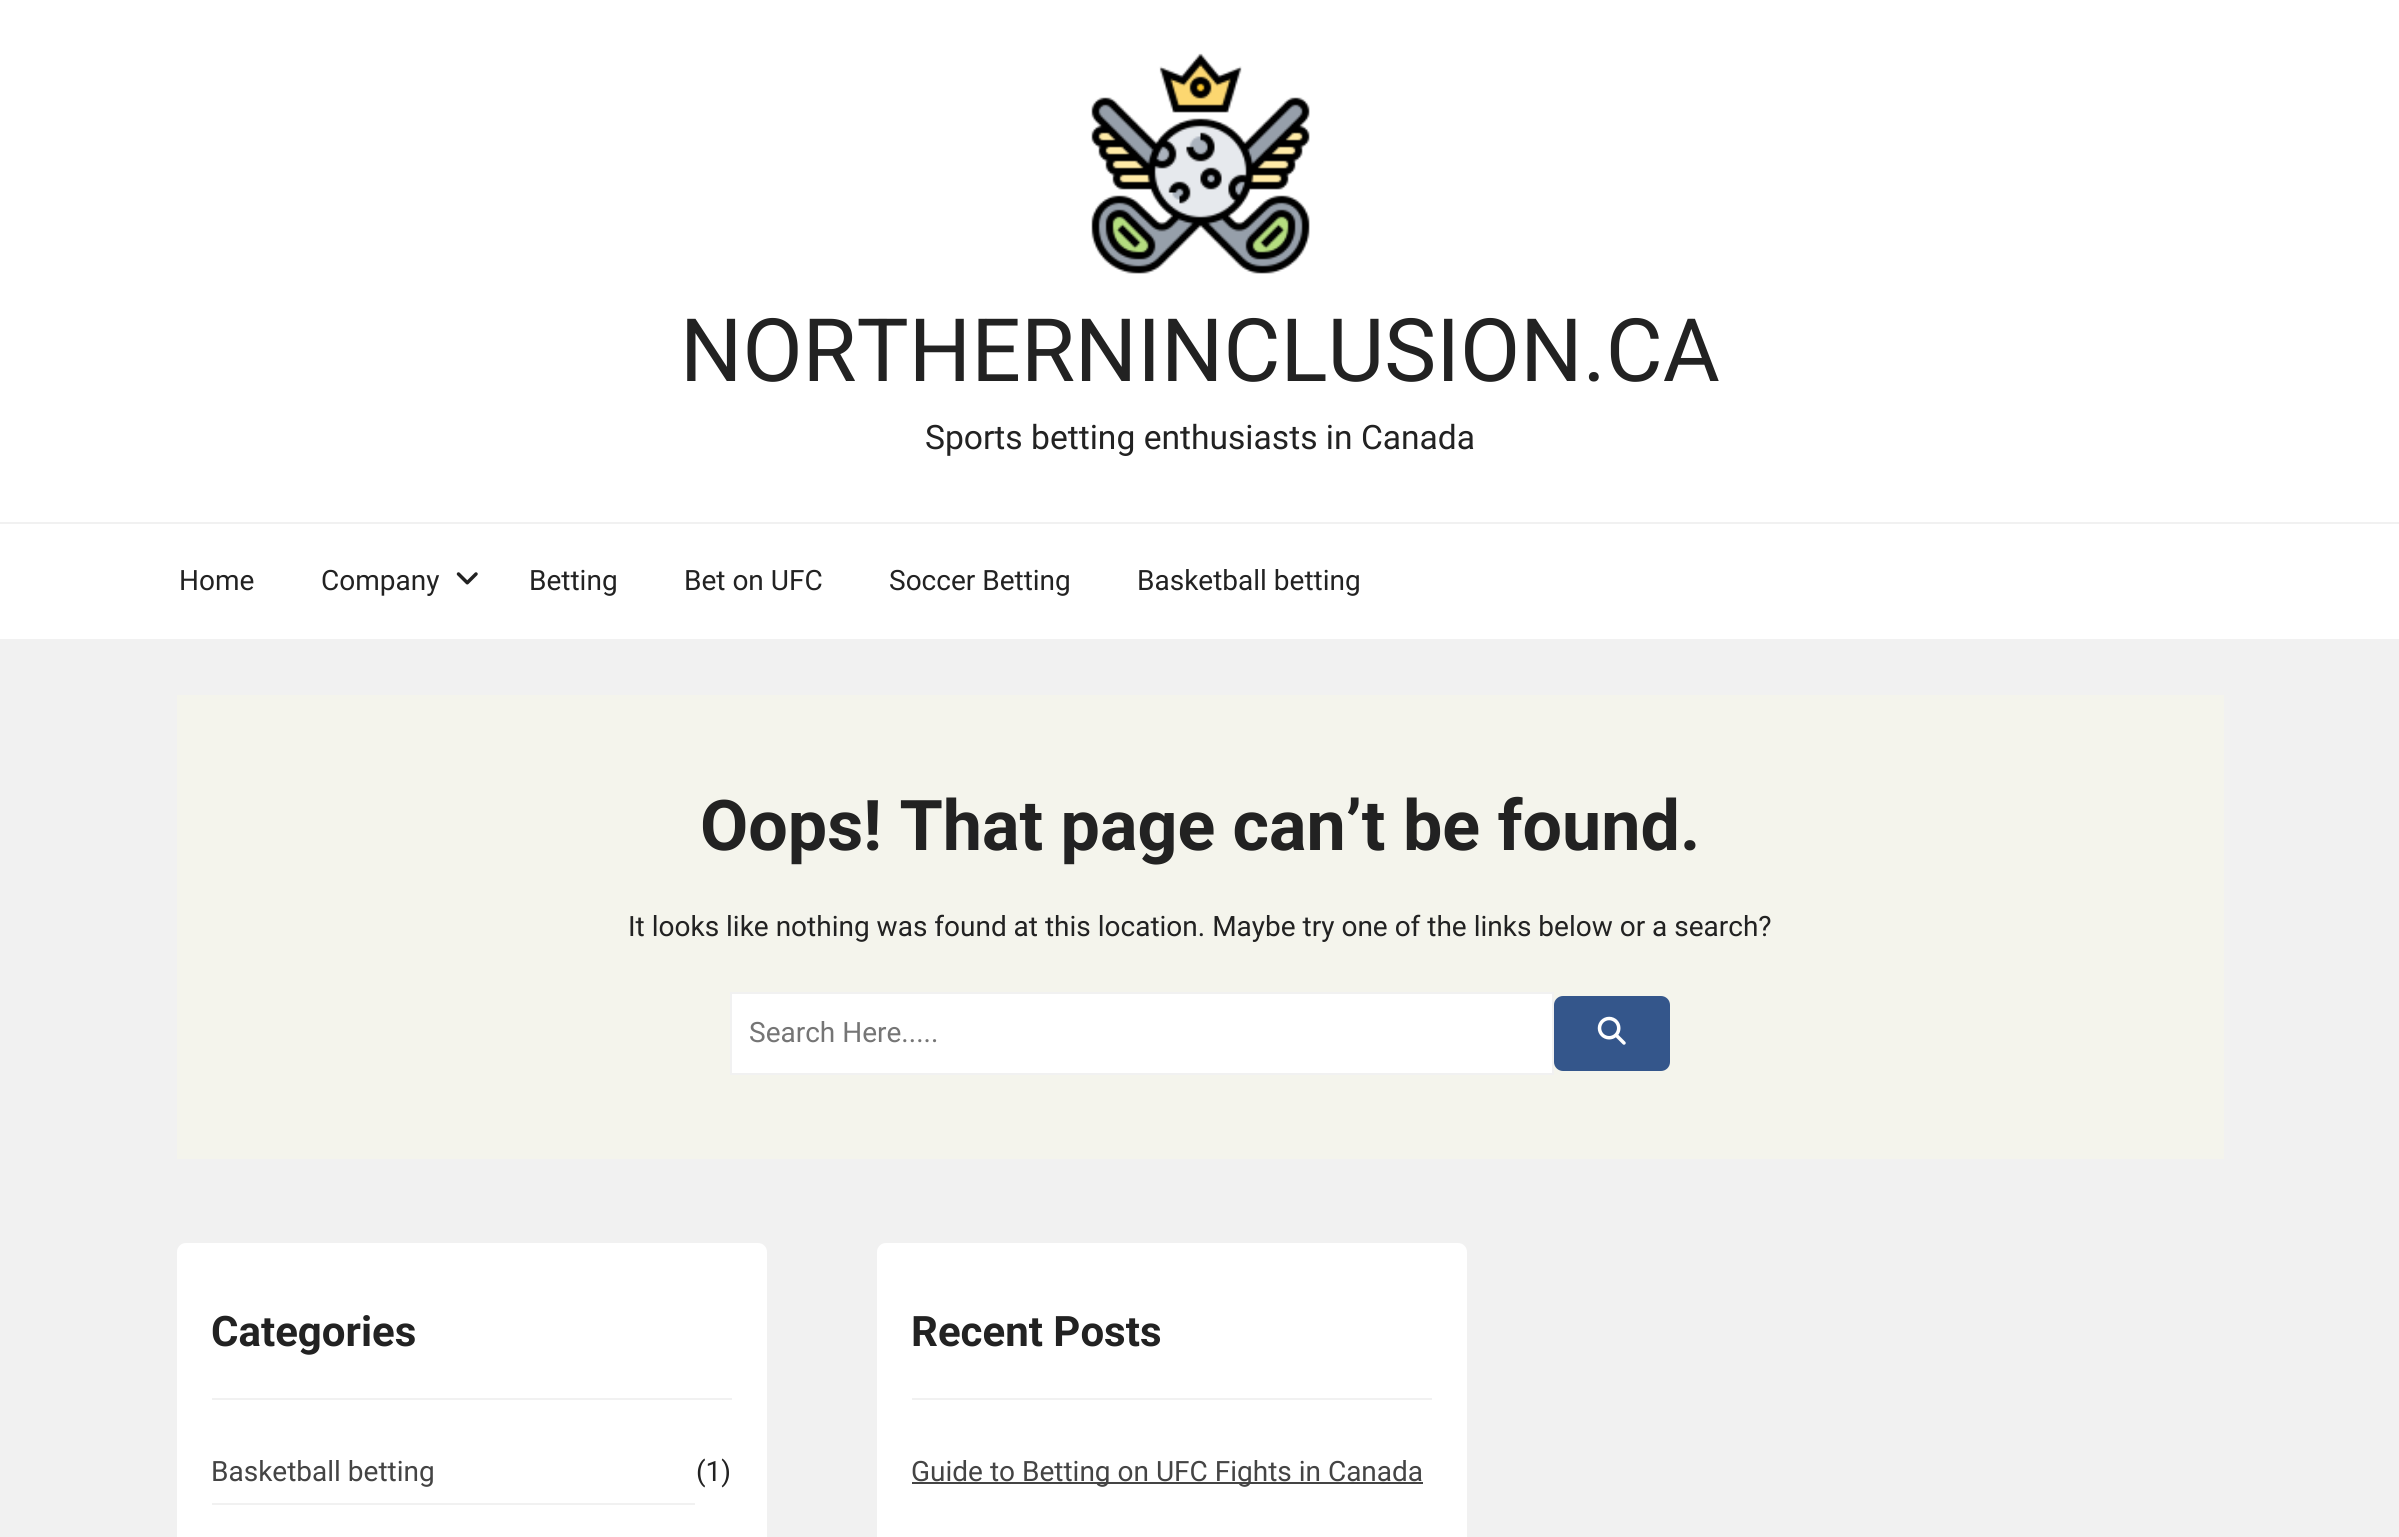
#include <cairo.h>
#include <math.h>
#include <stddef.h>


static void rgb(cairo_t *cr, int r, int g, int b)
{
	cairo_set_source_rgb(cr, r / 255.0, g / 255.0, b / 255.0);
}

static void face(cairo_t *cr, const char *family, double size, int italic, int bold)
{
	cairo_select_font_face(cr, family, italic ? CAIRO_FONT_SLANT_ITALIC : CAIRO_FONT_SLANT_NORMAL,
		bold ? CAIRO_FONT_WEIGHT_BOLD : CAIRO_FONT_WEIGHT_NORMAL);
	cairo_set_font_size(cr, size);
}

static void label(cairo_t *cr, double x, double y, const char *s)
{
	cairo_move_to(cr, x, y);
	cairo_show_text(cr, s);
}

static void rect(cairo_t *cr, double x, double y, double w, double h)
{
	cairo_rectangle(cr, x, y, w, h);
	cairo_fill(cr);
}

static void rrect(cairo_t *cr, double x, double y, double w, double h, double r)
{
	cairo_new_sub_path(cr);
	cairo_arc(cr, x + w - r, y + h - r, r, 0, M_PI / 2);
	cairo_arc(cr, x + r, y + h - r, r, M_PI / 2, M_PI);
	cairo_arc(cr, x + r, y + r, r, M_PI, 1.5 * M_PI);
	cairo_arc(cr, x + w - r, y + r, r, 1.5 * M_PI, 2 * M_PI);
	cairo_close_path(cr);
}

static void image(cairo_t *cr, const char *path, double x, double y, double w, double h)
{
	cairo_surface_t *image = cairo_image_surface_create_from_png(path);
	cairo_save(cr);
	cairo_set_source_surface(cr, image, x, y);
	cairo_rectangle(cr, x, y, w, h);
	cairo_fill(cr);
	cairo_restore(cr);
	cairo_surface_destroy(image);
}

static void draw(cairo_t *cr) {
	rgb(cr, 241, 241, 241);
	cairo_paint(cr);
	rgb(cr, 255, 255, 255);
	rect(cr, 0, 0, 2399, 639);
	image(cr, "image0.png", 1091, 53, 219, 221);
	face(cr, "Roboto", 87.5, 0, 0);
	rgb(cr, 34, 34, 34);
	label(cr, 680, 381, "NORTHERNINCLUSION.CA");
	face(cr, "Roboto", 33.6, 0, 0);
	label(cr, 925, 449, "Sports betting enthusiasts in Canada");
	rgb(cr, 241, 241, 241);
	rect(cr, 0, 522, 2399, 2);
	face(cr, "Roboto", 28, 0, 0);
	rgb(cr, 34, 34, 34);
	label(cr, 179, 590, "Home");
	label(cr, 321, 590, "Company");
	image(cr, "image1.png", 456, 572, 22, 13);
	label(cr, 529, 590, "Betting");
	label(cr, 684, 590, "Bet on UFC");
	label(cr, 889, 590, "Soccer Betting");
	label(cr, 1137, 590, "Basketball betting");
	rgb(cr, 244, 244, 236);
	rect(cr, 177, 695, 2047, 464);
	face(cr, "Roboto", 70, 0, 1);
	rgb(cr, 34, 34, 34);
	label(cr, 700, 850, "Oops! That page can’t be found.");
	face(cr, "Roboto", 28, 0, 0);
	label(cr, 628, 936, "It looks like nothing was found at this location. Maybe try one of the links below or a search?");
	rgb(cr, 255, 255, 255);
	cairo_rectangle(cr, 731, 993, 822, 81);
	cairo_fill_preserve(cr);
	rgb(cr, 241, 241, 241);
	cairo_stroke(cr);
	rgb(cr, 117, 117, 117);
	label(cr, 749, 1042, "Search Here.....");
	rgb(cr, 52, 86, 139);
	rrect(cr, 1555, 997, 114, 73, 8);
	cairo_fill_preserve(cr);
	cairo_stroke(cr);
	image(cr, "image2.png", 1597, 1016, 29, 29);
	rgb(cr, 255, 255, 255);
	rrect(cr, 177, 1243, 590, 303, 9);
	cairo_fill(cr);
	rgb(cr, 241, 241, 241);
	rect(cr, 212, 1398, 520, 2);
	face(cr, "Roboto", 42, 0, 1);
	rgb(cr, 34, 34, 34);
	label(cr, 211, 1346, "Categories");
	rgb(cr, 241, 241, 241);
	rect(cr, 212, 1503, 483, 2);
	face(cr, "Roboto", 28, 0, 0);
	rgb(cr, 68, 68, 68);
	label(cr, 211, 1481, "Basketball betting");
	rgb(cr, 34, 34, 34);
	label(cr, 696, 1481, "(1)");
	rgb(cr, 255, 255, 255);
	rrect(cr, 877, 1243, 590, 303, 9);
	cairo_fill(cr);
	rgb(cr, 241, 241, 241);
	rect(cr, 912, 1398, 520, 2);
	face(cr, "Roboto", 42, 0, 1);
	rgb(cr, 34, 34, 34);
	label(cr, 911, 1346, "Recent Posts");
	rgb(cr, 68, 68, 68);
	rect(cr, 912, 1482, 511, 2);
	face(cr, "Roboto", 28, 0, 0);
	label(cr, 911, 1481, "Guide to Betting on UFC Fights in Canada");
}

int main(void) {
	cairo_surface_t *surface = cairo_image_surface_create(CAIRO_FORMAT_RGB24, 2399, 1537);
	cairo_t *cr = cairo_create(surface);
	cairo_font_options_t *options = cairo_font_options_create();
	cairo_font_options_set_hint_metrics(options, CAIRO_HINT_METRICS_OFF);
	cairo_font_options_set_hint_style(options, CAIRO_HINT_STYLE_NONE);
	cairo_set_font_options(cr, options);
	cairo_set_miter_limit(cr, 4);
	draw(cr);
	cairo_surface_write_to_png(surface, "render.png");
	cairo_font_options_destroy(options);
	cairo_destroy(cr);
	cairo_surface_destroy(surface);
	return 0;
}
